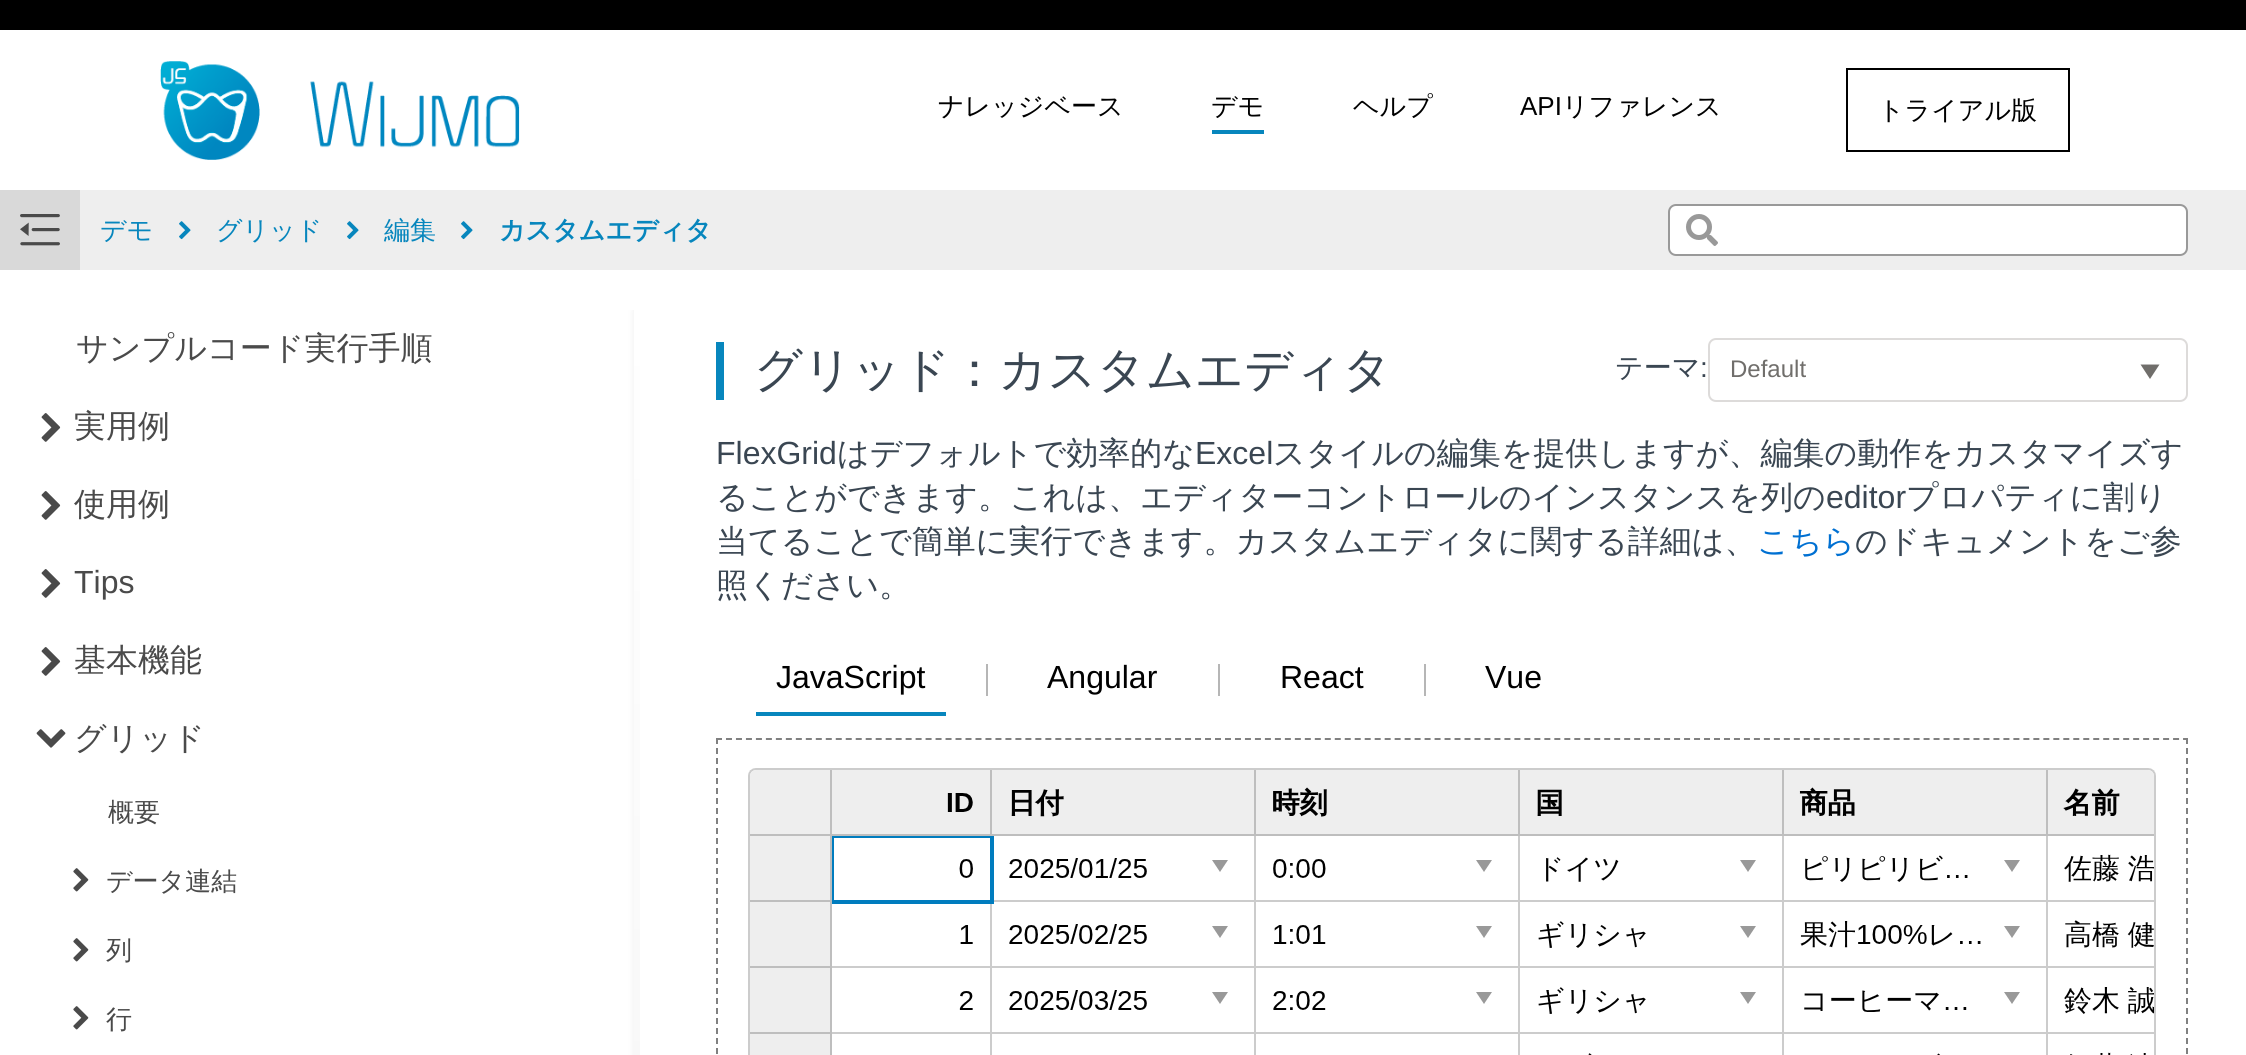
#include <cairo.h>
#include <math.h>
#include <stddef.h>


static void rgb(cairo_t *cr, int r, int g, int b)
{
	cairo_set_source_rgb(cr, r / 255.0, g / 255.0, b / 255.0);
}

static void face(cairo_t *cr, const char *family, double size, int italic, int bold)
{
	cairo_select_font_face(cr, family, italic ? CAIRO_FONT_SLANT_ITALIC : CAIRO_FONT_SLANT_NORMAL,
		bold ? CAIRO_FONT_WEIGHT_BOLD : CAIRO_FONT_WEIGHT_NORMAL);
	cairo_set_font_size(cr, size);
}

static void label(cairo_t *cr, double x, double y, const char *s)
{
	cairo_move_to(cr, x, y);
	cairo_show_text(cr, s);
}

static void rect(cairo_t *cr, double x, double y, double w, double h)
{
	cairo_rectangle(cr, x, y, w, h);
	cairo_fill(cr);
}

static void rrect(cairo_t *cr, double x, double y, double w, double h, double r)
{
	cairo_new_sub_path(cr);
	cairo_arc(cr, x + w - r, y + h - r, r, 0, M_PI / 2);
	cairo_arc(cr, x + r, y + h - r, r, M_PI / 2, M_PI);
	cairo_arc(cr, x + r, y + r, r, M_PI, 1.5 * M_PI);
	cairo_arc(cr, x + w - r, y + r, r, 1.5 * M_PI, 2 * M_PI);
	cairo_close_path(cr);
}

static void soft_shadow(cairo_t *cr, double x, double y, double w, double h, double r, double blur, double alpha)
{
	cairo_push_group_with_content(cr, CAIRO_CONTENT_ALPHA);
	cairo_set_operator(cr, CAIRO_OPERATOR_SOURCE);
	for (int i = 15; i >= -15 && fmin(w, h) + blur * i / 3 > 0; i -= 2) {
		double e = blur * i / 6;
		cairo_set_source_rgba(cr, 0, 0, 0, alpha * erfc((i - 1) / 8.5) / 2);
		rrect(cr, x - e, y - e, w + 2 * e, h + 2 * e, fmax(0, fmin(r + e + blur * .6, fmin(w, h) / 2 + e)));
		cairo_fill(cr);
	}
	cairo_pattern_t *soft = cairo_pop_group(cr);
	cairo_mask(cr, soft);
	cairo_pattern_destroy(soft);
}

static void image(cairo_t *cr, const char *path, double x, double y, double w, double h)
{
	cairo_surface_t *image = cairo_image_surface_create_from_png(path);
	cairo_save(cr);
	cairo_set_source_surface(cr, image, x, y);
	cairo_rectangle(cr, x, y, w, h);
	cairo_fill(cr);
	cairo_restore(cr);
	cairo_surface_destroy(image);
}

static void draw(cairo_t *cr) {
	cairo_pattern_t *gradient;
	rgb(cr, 255, 255, 255);
	cairo_paint(cr);
	rgb(cr, 0, 0, 0);
	rect(cr, 0, 0, 2246, 30);
	image(cr, "image0.png", 160, 61, 360, 99);
	face(cr, "WenQuanYi Zen Hei Medium", 26, 0, 0);
	label(cr, 938, 115, "ナレッジベース");
	rgb(cr, 7, 134, 189);
	rect(cr, 1212, 130, 52, 4);
	rgb(cr, 0, 0, 0);
	label(cr, 1211, 115, "デモ");
	label(cr, 1353, 115, "ヘルプ");
	face(cr, "Liberation Sans", 26, 0, 0);
	label(cr, 1520, 115, "API");
	face(cr, "WenQuanYi Zen Hei Medium", 26, 0, 0);
	label(cr, 1562, 115, "リファレンス");
	cairo_rectangle(cr, 1847, 69, 222, 82);
	cairo_stroke(cr);
	label(cr, 1878, 119, "トライアル版");
	rgb(cr, 238, 238, 238);
	rect(cr, 80, 190, 2166, 80);
	rgb(cr, 217, 217, 217);
	rect(cr, 0, 190, 80, 80);
	image(cr, "image1.png", 20, 214, 40, 32);
	rgb(cr, 7, 134, 189);
	label(cr, 100, 239, "デモ");
	image(cr, "image2.png", 179, 221, 12, 19);
	label(cr, 216, 239, "グリッド");
	image(cr, "image2.png", 347, 221, 12, 19);
	label(cr, 384, 239, "編集");
	image(cr, "image2.png", 461, 221, 12, 19);
	face(cr, "WenQuanYi Zen Hei", 26, 0, 1);
	label(cr, 499, 239, "カスタムエディタ");
	rgb(cr, 255, 255, 255);
	rrect(cr, 1669, 205, 518, 50, 7);
	cairo_fill_preserve(cr);
	rgb(cr, 153, 153, 153);
	cairo_stroke(cr);
	image(cr, "image3.png", 1686, 214, 32, 32);
	face(cr, "WenQuanYi Zen Hei Medium", 32, 0, 0);
	rgb(cr, 74, 74, 74);
	label(cr, 76, 359, "サンプルコード実行手順");
	image(cr, "image4.png", 41, 413, 20, 29);
	label(cr, 74, 437, "実用例");
	image(cr, "image4.png", 41, 491, 20, 29);
	label(cr, 74, 515, "使用例");
	image(cr, "image4.png", 41, 569, 20, 29);
	face(cr, "Liberation Sans", 32, 0, 0);
	label(cr, 74, 593, "Tips");
	image(cr, "image4.png", 41, 647, 20, 29);
	face(cr, "WenQuanYi Zen Hei Medium", 32, 0, 0);
	label(cr, 74, 671, "基本機能");
	image(cr, "image5.png", 36, 729, 30, 19);
	label(cr, 74, 749, "グリッド");
	face(cr, "WenQuanYi Zen Hei Medium", 26, 0, 0);
	label(cr, 108, 821, "概要");
	image(cr, "image6.png", 73, 868, 16, 24);
	label(cr, 106, 890, "データ連結");
	image(cr, "image6.png", 73, 938, 16, 24);
	label(cr, 106, 959, "列");
	image(cr, "image6.png", 73, 1006, 16, 24);
	label(cr, 106, 1028, "行");
	cairo_save(cr);
	cairo_rectangle(cr, 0, 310, 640, 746);
	cairo_clip(cr);
	rgb(cr, 196, 196, 196);
	soft_shadow(cr, 636, 310, 6, 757, 0, 4, 0.5);
	cairo_restore(cr);
	gradient = cairo_pattern_create_linear(637, 310, 637, 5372);
	cairo_pattern_add_color_stop_rgba(gradient, 0, 1, 1, 1, 1);
	cairo_pattern_add_color_stop_rgba(gradient, 0.51, 0.91, 0.91, 0.91, 1);
	cairo_pattern_add_color_stop_rgba(gradient, 1, 1, 1, 1, 1);
	cairo_set_source(cr, gradient);
	cairo_pattern_destroy(gradient);
	rect(cr, 634, 310, 6, 745);
	rgb(cr, 7, 134, 189);
	rect(cr, 716, 342, 8, 58);
	face(cr, "WenQuanYi Zen Hei Medium", 48, 0, 0);
	rgb(cr, 58, 70, 82);
	label(cr, 754, 386, "グリッド：カスタムエディタ");
	face(cr, "WenQuanYi Zen Hei Medium", 28, 0, 0);
	label(cr, 1615, 377, "テーマ");
	face(cr, "Liberation Sans", 28, 0, 0);
	label(cr, 1700, 377, ":");
	rgb(cr, 112, 110, 107);
	cairo_new_path(cr);
	cairo_move_to(cr, 2140.5, 364.5);
	cairo_line_to(cr, 2159.5, 364.5);
	cairo_line_to(cr, 2150, 379);
	cairo_fill(cr);
	rrect(cr, 1709, 339, 478, 62, 7);
	rgb(cr, 221, 219, 218);
	cairo_stroke(cr);
	face(cr, "Liberation Sans", 24, 0, 0);
	rgb(cr, 112, 110, 107);
	label(cr, 1730, 377, "Default");
	face(cr, "Liberation Sans", 32, 0, 0);
	rgb(cr, 58, 70, 82);
	label(cr, 716, 464, "FlexGrid");
	face(cr, "WenQuanYi Zen Hei Medium", 32, 0, 0);
	label(cr, 837, 464, "はデフォルトで効率的な");
	face(cr, "Liberation Sans", 32, 0, 0);
	label(cr, 1195, 464, "Excel");
	face(cr, "WenQuanYi Zen Hei Medium", 32, 0, 0);
	label(cr, 1273, 464, "スタイルの編集を提供しますが、編集の動作をカスタマイズす");
	label(cr, 716, 508, "ることができます。これは、エディターコントロールのインスタンスを列の");
	face(cr, "Liberation Sans", 32, 0, 0);
	label(cr, 1826, 508, "editor");
	face(cr, "WenQuanYi Zen Hei Medium", 32, 0, 0);
	label(cr, 1906, 508, "プロパティに割り");
	label(cr, 716, 552, "当てることで簡単に実行できます。カスタムエディタに関する詳細は、");
	rgb(cr, 0, 112, 210);
	label(cr, 1757, 552, "こちら");
	rgb(cr, 58, 70, 82);
	label(cr, 1855, 552, "のドキュメントをご参");
	label(cr, 716, 596, "照ください。");
	rgb(cr, 7, 134, 189);
	rect(cr, 756, 712, 190, 4);
	face(cr, "Liberation Sans", 32, 0, 0);
	rgb(cr, 0, 0, 0);
	label(cr, 776, 688, "JavaScript");
	rgb(cr, 182, 182, 182);
	rect(cr, 986, 664, 2, 32);
	rgb(cr, 0, 0, 0);
	label(cr, 1047, 688, "Angular");
	rgb(cr, 182, 182, 182);
	rect(cr, 1218, 664, 2, 32);
	rgb(cr, 0, 0, 0);
	label(cr, 1280, 688, "React");
	rgb(cr, 182, 182, 182);
	rect(cr, 1424, 664, 2, 32);
	rgb(cr, 0, 0, 0);
	label(cr, 1485, 688, "Vue");
	cairo_new_path(cr);
	cairo_move_to(cr, 716, 739);
	cairo_line_to(cr, 2188, 739);
	rgb(cr, 128, 128, 128);
	cairo_set_dash(cr, (double[]){6, 3.98}, 2, 0);
	cairo_stroke(cr);
	cairo_new_path(cr);
	cairo_move_to(cr, 2187, 738);
	cairo_line_to(cr, 2187, 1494);
	cairo_set_dash(cr, (double[]){6, 4}, 2, 0);
	cairo_stroke(cr);
	cairo_new_path(cr);
	cairo_move_to(cr, 717, 738);
	cairo_line_to(cr, 717, 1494);
	cairo_stroke(cr);
	image(cr, "image7.png", 748, 768, 1408, 287);
}

int main(void) {
	cairo_surface_t *surface = cairo_image_surface_create(CAIRO_FORMAT_RGB24, 2246, 1055);
	cairo_t *cr = cairo_create(surface);
	cairo_font_options_t *options = cairo_font_options_create();
	cairo_font_options_set_hint_metrics(options, CAIRO_HINT_METRICS_OFF);
	cairo_font_options_set_hint_style(options, CAIRO_HINT_STYLE_NONE);
	cairo_set_font_options(cr, options);
	cairo_set_miter_limit(cr, 4);
	draw(cr);
	cairo_surface_write_to_png(surface, "render.png");
	cairo_font_options_destroy(options);
	cairo_destroy(cr);
	cairo_surface_destroy(surface);
	return 0;
}
